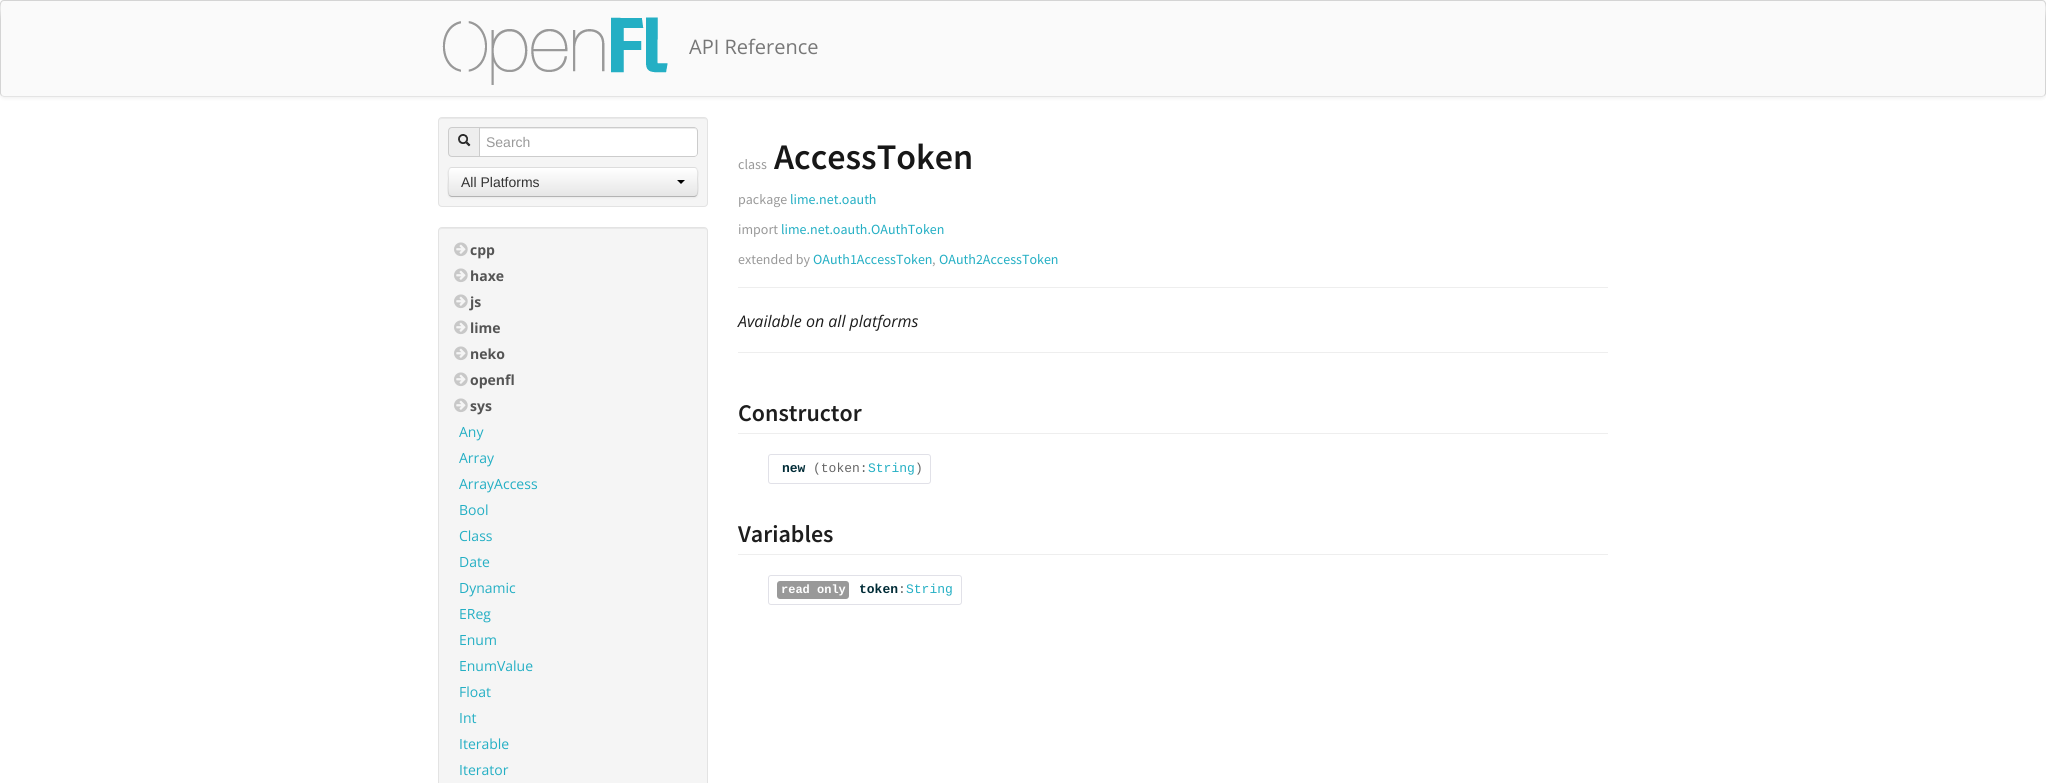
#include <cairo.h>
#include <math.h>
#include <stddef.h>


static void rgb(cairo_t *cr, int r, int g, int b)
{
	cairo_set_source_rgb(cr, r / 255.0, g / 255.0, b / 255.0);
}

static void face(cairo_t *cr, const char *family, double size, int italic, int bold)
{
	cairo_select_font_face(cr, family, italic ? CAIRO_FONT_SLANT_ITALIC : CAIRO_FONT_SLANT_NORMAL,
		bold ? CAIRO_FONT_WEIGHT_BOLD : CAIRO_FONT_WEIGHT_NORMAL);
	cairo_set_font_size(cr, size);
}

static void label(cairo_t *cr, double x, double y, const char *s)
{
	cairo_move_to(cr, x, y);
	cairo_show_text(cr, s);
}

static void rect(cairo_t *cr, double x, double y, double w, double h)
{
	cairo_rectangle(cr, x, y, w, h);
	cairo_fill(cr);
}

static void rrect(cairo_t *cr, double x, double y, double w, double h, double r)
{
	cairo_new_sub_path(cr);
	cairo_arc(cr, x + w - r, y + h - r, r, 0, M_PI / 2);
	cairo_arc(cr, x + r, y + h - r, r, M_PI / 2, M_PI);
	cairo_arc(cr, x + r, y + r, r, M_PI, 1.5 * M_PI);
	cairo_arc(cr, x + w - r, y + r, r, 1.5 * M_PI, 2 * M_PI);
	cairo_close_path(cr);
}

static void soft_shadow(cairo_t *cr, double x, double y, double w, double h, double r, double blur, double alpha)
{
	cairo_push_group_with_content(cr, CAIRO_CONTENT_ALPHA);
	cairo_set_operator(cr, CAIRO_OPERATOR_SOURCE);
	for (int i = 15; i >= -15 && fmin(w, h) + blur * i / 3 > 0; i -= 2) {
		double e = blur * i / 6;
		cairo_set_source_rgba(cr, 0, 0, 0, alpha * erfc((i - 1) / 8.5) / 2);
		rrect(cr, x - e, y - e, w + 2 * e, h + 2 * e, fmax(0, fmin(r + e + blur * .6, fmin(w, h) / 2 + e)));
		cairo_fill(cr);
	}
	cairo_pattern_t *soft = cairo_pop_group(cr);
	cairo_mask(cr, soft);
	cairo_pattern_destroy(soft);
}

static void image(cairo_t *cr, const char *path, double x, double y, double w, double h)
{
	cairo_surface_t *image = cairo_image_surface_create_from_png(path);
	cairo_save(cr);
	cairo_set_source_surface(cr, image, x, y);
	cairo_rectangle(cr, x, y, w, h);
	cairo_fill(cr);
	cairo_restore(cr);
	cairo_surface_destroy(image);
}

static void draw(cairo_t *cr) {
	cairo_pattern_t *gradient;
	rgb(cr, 255, 255, 255);
	cairo_paint(cr);
	rgb(cr, 0, 0, 0);
	soft_shadow(cr, 0, 1, 2046, 97, 4, 2, 0.07);
	rgb(cr, 250, 250, 250);
	rrect(cr, 0, 0, 2046, 97, 4);
	cairo_fill(cr);
	cairo_new_path(cr);
	cairo_move_to(cr, 2044.5, 95.5);
	cairo_line_to(cr, 2042, 96.5);
	cairo_line_to(cr, 4, 96.5);
	cairo_line_to(cr, 1.5, 95.5);
	rgb(cr, 228, 228, 228);
	cairo_set_line_width(cr, 1);
	cairo_stroke(cr);
	cairo_new_path(cr);
	cairo_move_to(cr, 1.5, 95.5);
	cairo_line_to(cr, 0.5, 93.5);
	cairo_line_to(cr, 0.5, 19);
	cairo_curve_to(cr, 0.5, 12, -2, 0.5, 4, 0.5);
	cairo_line_to(cr, 2042, 0.5);
	cairo_curve_to(cr, 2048, 0.5, 2045.5, 12, 2045.5, 19);
	cairo_line_to(cr, 2045.5, 93.5);
	cairo_line_to(cr, 2044.5, 95.5);
	rgb(cr, 212, 212, 212);
	cairo_stroke(cr);
	image(cr, "image0.png", 442, 17, 226, 68);
	face(cr, "Open Sans", 20, 0, 0);
	rgb(cr, 119, 119, 119);
	label(cr, 689, 54, "API Reference");
	rgb(cr, 245, 245, 245);
	rrect(cr, 438, 117, 270, 90, 4);
	cairo_fill(cr);
	rgb(cr, 233, 233, 233);
	cairo_new_path(cr);
	cairo_move_to(cr, 442, 119);
	cairo_line_to(cr, 704, 119);
	cairo_curve_to(cr, 706, 119, 707, 120, 707, 122);
	cairo_curve_to(cr, 707, 120, 706, 118, 704, 118);
	cairo_line_to(cr, 442, 118);
	cairo_curve_to(cr, 440, 118, 439, 120, 439, 122);
	cairo_curve_to(cr, 439, 120, 440, 119, 442, 119);
	cairo_close_path(cr);
	cairo_fill(cr);
	rrect(cr, 438.5, 117.5, 269, 89, 3.5);
	rgb(cr, 227, 227, 227);
	cairo_stroke(cr);
	rgb(cr, 238, 238, 238);
	cairo_new_path(cr);
	cairo_move_to(cr, 452, 127.5);
	cairo_line_to(cr, 479.5, 127.5);
	cairo_line_to(cr, 479.5, 156.5);
	cairo_line_to(cr, 452, 156.5);
	cairo_curve_to(cr, 450, 156.5, 448.5, 155, 448.5, 153);
	cairo_line_to(cr, 448.5, 131);
	cairo_curve_to(cr, 448.5, 129, 450, 127.5, 452, 127.5);
	cairo_close_path(cr);
	cairo_fill_preserve(cr);
	rgb(cr, 204, 204, 204);
	cairo_stroke(cr);
	image(cr, "image1.png", 458, 134, 13, 13);
	rgb(cr, 255, 255, 255);
	cairo_new_path(cr);
	cairo_move_to(cr, 480, 127);
	cairo_line_to(cr, 694, 127);
	cairo_curve_to(cr, 696, 127, 698, 129, 698, 131);
	cairo_line_to(cr, 698, 153);
	cairo_curve_to(cr, 698, 155, 696, 157, 694, 157);
	cairo_line_to(cr, 480, 157);
	cairo_close_path(cr);
	cairo_fill(cr);
	rgb(cr, 236, 236, 236);
	cairo_new_path(cr);
	cairo_move_to(cr, 480, 129);
	cairo_line_to(cr, 694, 129);
	cairo_curve_to(cr, 696, 129, 697, 130, 697, 132);
	cairo_line_to(cr, 697, 131);
	cairo_curve_to(cr, 697, 129, 696, 128, 694, 128);
	cairo_line_to(cr, 480, 128);
	cairo_close_path(cr);
	cairo_fill(cr);
	rgb(cr, 204, 204, 204);
	cairo_set_fill_rule(cr, CAIRO_FILL_RULE_EVEN_ODD);
	cairo_new_path(cr);
	cairo_move_to(cr, 480, 127);
	cairo_line_to(cr, 694, 127);
	cairo_curve_to(cr, 696, 127, 698, 129, 698, 131);
	cairo_line_to(cr, 698, 153);
	cairo_curve_to(cr, 698, 155, 696, 157, 694, 157);
	cairo_line_to(cr, 480, 157);
	cairo_close_path(cr);
	cairo_move_to(cr, 480, 128);
	cairo_line_to(cr, 694, 128);
	cairo_curve_to(cr, 696, 128, 697, 129, 697, 131);
	cairo_line_to(cr, 697, 153);
	cairo_curve_to(cr, 697, 155, 696, 156, 694, 156);
	cairo_line_to(cr, 480, 156);
	cairo_close_path(cr);
	cairo_fill(cr);
	face(cr, "Liberation Sans", 14, 0, 0);
	rgb(cr, 153, 153, 153);
	label(cr, 486, 147, "Search");
	rgb(cr, 0, 0, 0);
	soft_shadow(cr, 448, 168, 250, 30, 4, 1, 0.05);
	rgb(cr, 245, 245, 245);
	rrect(cr, 448, 167, 250, 30, 4);
	cairo_fill(cr);
	cairo_save(cr);
	cairo_set_fill_rule(cr, CAIRO_FILL_RULE_WINDING);
	rrect(cr, 448, 167, 250, 30, 4);
	cairo_clip(cr);
	gradient = cairo_pattern_create_linear(573, 168, 573, 196);
	cairo_pattern_add_color_stop_rgba(gradient, 0, 1, 1, 1, 1);
	cairo_pattern_add_color_stop_rgba(gradient, 1, 0.902, 0.902, 0.902, 1);
	cairo_set_source(cr, gradient);
	cairo_pattern_destroy(gradient);
	rect(cr, 448, 168, 250, 28);
	cairo_restore(cr);
	cairo_new_path(cr);
	cairo_move_to(cr, 696.5, 195.5);
	cairo_curve_to(cr, 696, 196, 695, 196.5, 694, 196.5);
	cairo_line_to(cr, 452, 196.5);
	cairo_curve_to(cr, 451, 196.5, 450, 196, 449.5, 195.5);
	rgb(cr, 179, 179, 179);
	cairo_stroke(cr);
	cairo_new_path(cr);
	cairo_move_to(cr, 449.5, 195.5);
	cairo_curve_to(cr, 447, 193, 448.5, 181.5, 448.5, 178.5);
	cairo_curve_to(cr, 448.5, 175.5, 447, 167.5, 452, 167.5);
	cairo_line_to(cr, 694, 167.5);
	cairo_curve_to(cr, 699, 167.5, 697.5, 175.5, 697.5, 178.5);
	cairo_curve_to(cr, 697.5, 181.5, 699, 193, 696.5, 195.5);
	cairo_set_source_rgba(cr, 0, 0, 0, 0.1);
	cairo_stroke(cr);
	rgb(cr, 51, 51, 51);
	label(cr, 461, 187, "All Platforms");
	rgb(cr, 0, 0, 0);
	cairo_set_fill_rule(cr, CAIRO_FILL_RULE_WINDING);
	cairo_new_path(cr);
	cairo_move_to(cr, 677, 180);
	cairo_line_to(cr, 685, 180);
	cairo_line_to(cr, 681, 184);
	cairo_close_path(cr);
	cairo_fill(cr);
	rgb(cr, 245, 245, 245);
	rrect(cr, 438, 227, 270, 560, 4);
	cairo_fill(cr);
	rgb(cr, 233, 233, 233);
	cairo_new_path(cr);
	cairo_move_to(cr, 442, 229);
	cairo_line_to(cr, 704, 229);
	cairo_curve_to(cr, 706, 229, 707, 230, 707, 232);
	cairo_curve_to(cr, 707, 230, 706, 228, 704, 228);
	cairo_line_to(cr, 442, 228);
	cairo_curve_to(cr, 440, 228, 439, 230, 439, 232);
	cairo_curve_to(cr, 439, 230, 440, 229, 442, 229);
	cairo_close_path(cr);
	cairo_fill(cr);
	rrect(cr, 438.5, 227.5, 269, 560, 3.5);
	rgb(cr, 227, 227, 227);
	cairo_stroke(cr);
	image(cr, "image2.png", 454, 242, 14, 15);
	face(cr, "Open Sans", 14, 0, 1);
	rgb(cr, 85, 85, 85);
	label(cr, 470, 255, "cpp");
	image(cr, "image2.png", 454, 268, 14, 15);
	label(cr, 470, 281, "haxe");
	image(cr, "image2.png", 454, 294, 14, 15);
	label(cr, 470, 307, "js");
	image(cr, "image2.png", 454, 320, 14, 15);
	label(cr, 470, 333, "lime");
	image(cr, "image2.png", 454, 346, 14, 15);
	label(cr, 470, 359, "neko");
	image(cr, "image2.png", 454, 372, 14, 15);
	label(cr, 470, 385, "openfl");
	image(cr, "image2.png", 454, 398, 14, 15);
	label(cr, 470, 411, "sys");
	face(cr, "Open Sans", 14, 0, 0);
	rgb(cr, 36, 175, 196);
	label(cr, 459, 437, "Any");
	label(cr, 459, 463, "Array");
	label(cr, 459, 489, "ArrayAccess");
	label(cr, 459, 515, "Bool");
	label(cr, 459, 541, "Class");
	label(cr, 459, 567, "Date");
	label(cr, 459, 593, "Dynamic");
	label(cr, 459, 619, "EReg");
	label(cr, 459, 645, "Enum");
	label(cr, 459, 671, "EnumValue");
	label(cr, 459, 697, "Float");
	label(cr, 459, 723, "Int");
	label(cr, 459, 749, "Iterable");
	label(cr, 459, 775, "Iterator");
	rgb(cr, 238, 238, 238);
	rect(cr, 738, 352, 870, 1);
	face(cr, "Source Sans Pro", 14, 0, 0);
	rgb(cr, 153, 153, 153);
	label(cr, 738, 169, "class");
	face(cr, "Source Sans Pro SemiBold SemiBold", 36, 0, 0);
	rgb(cr, 23, 23, 23);
	label(cr, 774, 169, "AccessToken");
	face(cr, "Source Sans Pro", 14, 0, 0);
	rgb(cr, 153, 153, 153);
	label(cr, 738, 204, "package");
	rgb(cr, 36, 175, 196);
	label(cr, 790, 204, "lime.net.oauth");
	rgb(cr, 153, 153, 153);
	label(cr, 738, 234, "import");
	rgb(cr, 36, 175, 196);
	label(cr, 781, 234, "lime.net.oauth.OAuthToken");
	rgb(cr, 153, 153, 153);
	label(cr, 738, 264, "extended by");
	rgb(cr, 36, 175, 196);
	label(cr, 813, 264, "OAuth1AccessToken");
	rgb(cr, 153, 153, 153);
	label(cr, 932, 264, ",");
	rgb(cr, 36, 175, 196);
	label(cr, 939, 264, "OAuth2AccessToken");
	rgb(cr, 238, 238, 238);
	rect(cr, 738, 287, 870, 1);
	face(cr, "Open Sans", 16, 1, 0);
	rgb(cr, 30, 30, 30);
	label(cr, 738, 327, "Available on all platforms");
	rgb(cr, 238, 238, 238);
	rect(cr, 738, 433, 870, 1);
	face(cr, "Source Sans Pro SemiBold SemiBold", 24, 0, 0);
	rgb(cr, 30, 30, 30);
	label(cr, 738, 421, "Constructor");
	rrect(cr, 768.5, 454.5, 162, 29, 2.5);
	rgb(cr, 225, 225, 232);
	cairo_stroke(cr);
	face(cr, "Liberation Mono", 13, 0, 1);
	rgb(cr, 0, 43, 54);
	label(cr, 782, 472, "new");
	face(cr, "Liberation Mono", 13, 0, 0);
	rgb(cr, 102, 102, 102);
	label(cr, 813, 472, "(token:");
	rgb(cr, 36, 175, 196);
	label(cr, 868, 472, "String");
	rgb(cr, 102, 102, 102);
	label(cr, 915, 472, ")");
	rgb(cr, 238, 238, 238);
	rect(cr, 738, 554, 870, 1);
	face(cr, "Source Sans Pro SemiBold SemiBold", 24, 0, 0);
	rgb(cr, 30, 30, 30);
	label(cr, 738, 542, "Variables");
	rrect(cr, 768.5, 575.5, 193, 29, 2.5);
	rgb(cr, 225, 225, 232);
	cairo_stroke(cr);
	rgb(cr, 153, 153, 153);
	rrect(cr, 777, 581, 72, 18, 3);
	cairo_fill(cr);
	face(cr, "Liberation Mono", 12, 0, 1);
	rgb(cr, 255, 255, 255);
	label(cr, 781, 593, "read only");
	face(cr, "Liberation Mono", 13, 0, 1);
	rgb(cr, 0, 43, 54);
	label(cr, 859, 593, "token");
	face(cr, "Liberation Mono", 13, 0, 0);
	rgb(cr, 102, 102, 102);
	label(cr, 898, 593, ":");
	rgb(cr, 36, 175, 196);
	label(cr, 906, 593, "String");
}

int main(void) {
	cairo_surface_t *surface = cairo_image_surface_create(CAIRO_FORMAT_RGB24, 2046, 783);
	cairo_t *cr = cairo_create(surface);
	cairo_font_options_t *options = cairo_font_options_create();
	cairo_font_options_set_hint_metrics(options, CAIRO_HINT_METRICS_OFF);
	cairo_font_options_set_hint_style(options, CAIRO_HINT_STYLE_NONE);
	cairo_set_font_options(cr, options);
	cairo_set_miter_limit(cr, 4);
	draw(cr);
	cairo_surface_write_to_png(surface, "render.png");
	cairo_font_options_destroy(options);
	cairo_destroy(cr);
	cairo_surface_destroy(surface);
	return 0;
}
